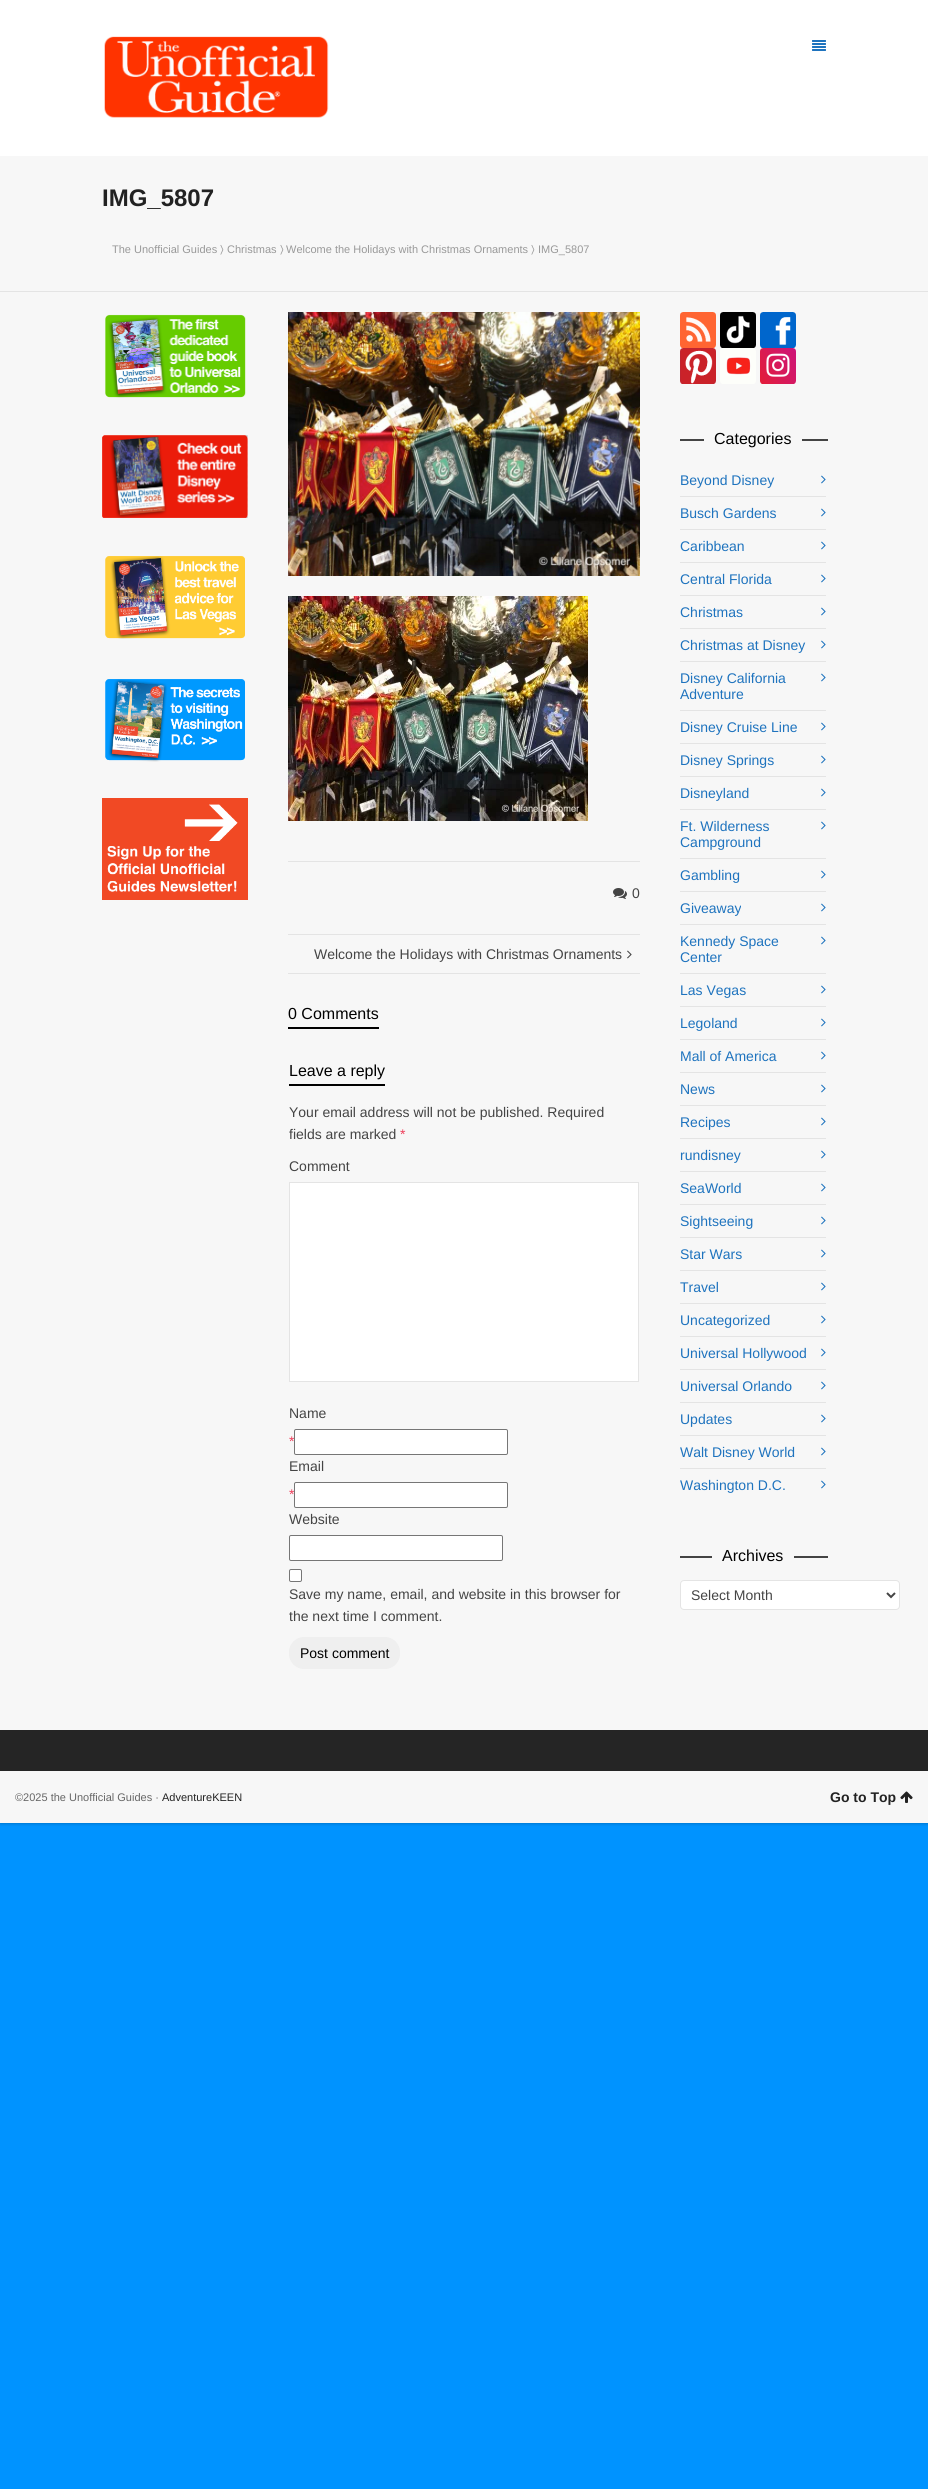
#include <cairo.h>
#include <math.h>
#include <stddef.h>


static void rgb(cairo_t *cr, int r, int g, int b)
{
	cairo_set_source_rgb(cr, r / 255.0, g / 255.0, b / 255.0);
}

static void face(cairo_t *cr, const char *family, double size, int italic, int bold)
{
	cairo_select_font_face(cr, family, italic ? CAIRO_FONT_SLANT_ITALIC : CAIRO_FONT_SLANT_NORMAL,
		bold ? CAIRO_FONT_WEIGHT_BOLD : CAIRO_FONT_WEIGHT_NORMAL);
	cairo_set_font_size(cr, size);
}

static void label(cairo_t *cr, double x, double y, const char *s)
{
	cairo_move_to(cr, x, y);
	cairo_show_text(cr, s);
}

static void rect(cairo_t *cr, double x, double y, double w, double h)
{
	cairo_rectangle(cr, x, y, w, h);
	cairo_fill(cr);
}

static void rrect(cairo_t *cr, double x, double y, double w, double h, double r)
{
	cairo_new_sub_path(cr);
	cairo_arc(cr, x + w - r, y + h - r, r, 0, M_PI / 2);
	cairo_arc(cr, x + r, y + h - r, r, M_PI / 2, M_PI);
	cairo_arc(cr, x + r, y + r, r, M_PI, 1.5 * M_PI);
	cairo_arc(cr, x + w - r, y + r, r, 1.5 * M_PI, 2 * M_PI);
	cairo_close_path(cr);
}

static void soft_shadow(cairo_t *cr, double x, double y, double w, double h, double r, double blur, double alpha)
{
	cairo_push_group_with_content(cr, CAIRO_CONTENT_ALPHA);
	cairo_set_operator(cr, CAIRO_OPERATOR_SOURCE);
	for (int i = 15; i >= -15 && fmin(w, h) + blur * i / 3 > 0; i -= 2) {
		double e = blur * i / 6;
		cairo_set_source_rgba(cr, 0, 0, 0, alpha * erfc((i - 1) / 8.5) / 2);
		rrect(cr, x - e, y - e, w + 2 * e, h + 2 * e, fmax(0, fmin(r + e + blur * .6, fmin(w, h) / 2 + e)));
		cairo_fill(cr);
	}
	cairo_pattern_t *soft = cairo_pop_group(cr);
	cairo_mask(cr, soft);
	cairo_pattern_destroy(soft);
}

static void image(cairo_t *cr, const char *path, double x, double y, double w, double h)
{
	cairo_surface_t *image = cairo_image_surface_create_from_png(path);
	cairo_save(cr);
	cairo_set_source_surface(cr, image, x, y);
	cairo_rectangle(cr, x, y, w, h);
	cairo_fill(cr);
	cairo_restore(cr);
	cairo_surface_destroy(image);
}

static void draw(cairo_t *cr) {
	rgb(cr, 0, 147, 255);
	cairo_paint(cr);
	rgb(cr, 0, 0, 0);
	soft_shadow(cr, 0, 0, 928, 1823, 0, 2, 0.3);
	rgb(cr, 255, 255, 255);
	rect(cr, 0, 0, 928, 156);
	image(cr, "image0.png", 104, 36, 225, 82);
	image(cr, "image1.png", 812, 40, 14, 11);
	rgb(cr, 247, 247, 247);
	rect(cr, 0, 156, 928, 1574);
	rgb(cr, 228, 228, 228);
	rect(cr, 0, 291, 928, 1);
	face(cr, "Liberation Sans", 24, 0, 1);
	rgb(cr, 34, 34, 34);
	label(cr, 102, 206, "IMG_5807");
	face(cr, "Liberation Sans", 11, 0, 0);
	rgb(cr, 153, 153, 153);
	label(cr, 112, 253, "The Unofficial Guides");
	face(cr, "FreeSans", 11, 0, 0);
	label(cr, 220, 253, "〉");
	face(cr, "Liberation Sans", 11, 0, 0);
	label(cr, 227, 253, "Christmas");
	face(cr, "FreeSans", 11, 0, 0);
	label(cr, 280, 253, "〉");
	face(cr, "Liberation Sans", 11, 0, 0);
	label(cr, 286, 253, "Welcome the Holidays with Christmas Ornaments");
	face(cr, "FreeSans", 11, 0, 0);
	label(cr, 531, 253, "〉");
	face(cr, "Liberation Sans", 11, 0, 0);
	label(cr, 538, 253, "IMG_5807");
	image(cr, "image2.png", 105, 314, 141, 84);
	image(cr, "image3.png", 102, 435, 146, 83);
	image(cr, "image4.png", 105, 556, 140, 83);
	image(cr, "image5.png", 105, 679, 140, 83);
	image(cr, "image6.png", 102, 798, 146, 102);
	image(cr, "image7.png", 288, 312, 352, 264);
	image(cr, "image8.png", 288, 596, 300, 225);
	rgb(cr, 228, 228, 228);
	rect(cr, 288, 861, 352, 1);
	image(cr, "image9.png", 613, 888, 14, 11);
	face(cr, "Liberation Sans", 14, 0, 0);
	rgb(cr, 68, 68, 68);
	label(cr, 632, 898, "0");
	rgb(cr, 228, 228, 228);
	rect(cr, 288, 934, 352, 1);
	rect(cr, 288, 973, 352, 1);
	rgb(cr, 68, 68, 68);
	label(cr, 314, 959, "Welcome the Holidays with Christmas Ornaments");
	image(cr, "image10.png", 627, 950, 5, 9);
	rgb(cr, 0, 0, 0);
	rect(cr, 288, 1027, 91, 2);
	face(cr, "Liberation Sans", 16, 0, 0);
	label(cr, 288, 1019, "0 Comments");
	rect(cr, 289, 1084, 96, 2);
	label(cr, 289, 1076, "Leave a reply");
	face(cr, "Liberation Sans", 14, 0, 0);
	rgb(cr, 68, 68, 68);
	label(cr, 289, 1117, "Your email address will not be published. Required");
	label(cr, 289, 1139, "fields are marked");
	rgb(cr, 238, 60, 89);
	label(cr, 400, 1139, "*");
	rgb(cr, 68, 68, 68);
	label(cr, 289, 1171, "Comment");
	rgb(cr, 255, 255, 255);
	cairo_rectangle(cr, 289.5, 1182.5, 349, 199);
	cairo_fill_preserve(cr);
	rgb(cr, 228, 228, 228);
	cairo_set_line_width(cr, 1);
	cairo_stroke(cr);
	rgb(cr, 68, 68, 68);
	label(cr, 289, 1418, "Name");
	rgb(cr, 238, 60, 89);
	label(cr, 289, 1446, "*");
	rgb(cr, 255, 255, 255);
	rrect(cr, 294.5, 1429.5, 213, 25, 1.5);
	cairo_fill_preserve(cr);
	rgb(cr, 118, 118, 118);
	cairo_stroke(cr);
	rgb(cr, 68, 68, 68);
	label(cr, 289, 1471, "Email");
	rgb(cr, 238, 60, 89);
	label(cr, 289, 1499, "*");
	rgb(cr, 255, 255, 255);
	rrect(cr, 294.5, 1482.5, 213, 25, 1.5);
	cairo_fill_preserve(cr);
	rgb(cr, 118, 118, 118);
	cairo_stroke(cr);
	rgb(cr, 68, 68, 68);
	label(cr, 289, 1524, "Website");
	rgb(cr, 255, 255, 255);
	rrect(cr, 289.5, 1535.5, 213, 25, 1.5);
	cairo_fill_preserve(cr);
	rgb(cr, 118, 118, 118);
	cairo_stroke(cr);
	rgb(cr, 255, 255, 255);
	rrect(cr, 289.5, 1569.5, 12, 12, 1.5);
	cairo_fill_preserve(cr);
	rgb(cr, 118, 118, 118);
	cairo_stroke(cr);
	rgb(cr, 68, 68, 68);
	label(cr, 289, 1599, "Save my name, email, and website in this browser for");
	label(cr, 289, 1621, "the next time I comment.");
	rgb(cr, 239, 239, 239);
	rrect(cr, 289, 1637, 111, 32, 15);
	cairo_fill(cr);
	rgb(cr, 0, 0, 0);
	label(cr, 300, 1658, "Post comment");
	image(cr, "image11.png", 680, 312, 36, 36);
	image(cr, "image12.png", 720, 312, 36, 36);
	image(cr, "image13.png", 760, 312, 36, 36);
	image(cr, "image14.png", 680, 348, 36, 36);
	image(cr, "image15.png", 720, 348, 36, 36);
	image(cr, "image16.png", 760, 348, 36, 36);
	rgb(cr, 68, 68, 68);
	rect(cr, 680, 439, 148, 2);
	rgb(cr, 247, 247, 247);
	rect(cr, 704, 439, 98, 2);
	face(cr, "Liberation Sans", 16, 0, 0);
	rgb(cr, 0, 0, 0);
	label(cr, 714, 444, "Categories");
	face(cr, "Liberation Sans", 14, 0, 0);
	rgb(cr, 30, 115, 190);
	label(cr, 680, 485, "Beyond Disney");
	image(cr, "image17.png", 821, 475, 5, 9);
	rgb(cr, 228, 228, 228);
	rect(cr, 680, 496, 146, 1);
	rgb(cr, 30, 115, 190);
	label(cr, 680, 518, "Busch Gardens");
	image(cr, "image17.png", 821, 508, 5, 9);
	rgb(cr, 228, 228, 228);
	rect(cr, 680, 529, 146, 1);
	rgb(cr, 30, 115, 190);
	label(cr, 680, 551, "Caribbean");
	image(cr, "image17.png", 821, 541, 5, 9);
	rgb(cr, 228, 228, 228);
	rect(cr, 680, 562, 146, 1);
	rgb(cr, 30, 115, 190);
	label(cr, 680, 584, "Central Florida");
	image(cr, "image17.png", 821, 574, 5, 9);
	rgb(cr, 228, 228, 228);
	rect(cr, 680, 595, 146, 1);
	rgb(cr, 30, 115, 190);
	label(cr, 680, 617, "Christmas");
	image(cr, "image17.png", 821, 607, 5, 9);
	rgb(cr, 228, 228, 228);
	rect(cr, 680, 628, 146, 1);
	rgb(cr, 30, 115, 190);
	label(cr, 680, 650, "Christmas at Disney");
	image(cr, "image17.png", 821, 640, 5, 9);
	rgb(cr, 228, 228, 228);
	rect(cr, 680, 661, 146, 1);
	rgb(cr, 30, 115, 190);
	label(cr, 680, 683, "Disney California");
	image(cr, "image17.png", 821, 673, 5, 9);
	label(cr, 680, 699, "Adventure");
	rgb(cr, 228, 228, 228);
	rect(cr, 680, 710, 146, 1);
	rgb(cr, 30, 115, 190);
	label(cr, 680, 732, "Disney Cruise Line");
	image(cr, "image17.png", 821, 722, 5, 9);
	rgb(cr, 228, 228, 228);
	rect(cr, 680, 743, 146, 1);
	rgb(cr, 30, 115, 190);
	label(cr, 680, 765, "Disney Springs");
	image(cr, "image17.png", 821, 755, 5, 9);
	rgb(cr, 228, 228, 228);
	rect(cr, 680, 776, 146, 1);
	rgb(cr, 30, 115, 190);
	label(cr, 680, 798, "Disneyland");
	image(cr, "image17.png", 821, 788, 5, 9);
	rgb(cr, 228, 228, 228);
	rect(cr, 680, 809, 146, 1);
	rgb(cr, 30, 115, 190);
	label(cr, 680, 831, "Ft. Wilderness");
	image(cr, "image17.png", 821, 821, 5, 9);
	label(cr, 680, 847, "Campground");
	rgb(cr, 228, 228, 228);
	rect(cr, 680, 858, 146, 1);
	rgb(cr, 30, 115, 190);
	label(cr, 680, 880, "Gambling");
	image(cr, "image17.png", 821, 870, 5, 9);
	rgb(cr, 228, 228, 228);
	rect(cr, 680, 891, 146, 1);
	rgb(cr, 30, 115, 190);
	label(cr, 680, 913, "Giveaway");
	image(cr, "image17.png", 821, 903, 5, 9);
	rgb(cr, 228, 228, 228);
	rect(cr, 680, 924, 146, 1);
	rgb(cr, 30, 115, 190);
	label(cr, 680, 946, "Kennedy Space");
	image(cr, "image17.png", 821, 936, 5, 9);
	label(cr, 680, 962, "Center");
	rgb(cr, 228, 228, 228);
	rect(cr, 680, 973, 146, 1);
	rgb(cr, 30, 115, 190);
	label(cr, 680, 995, "Las Vegas");
	image(cr, "image17.png", 821, 985, 5, 9);
	rgb(cr, 228, 228, 228);
	rect(cr, 680, 1006, 146, 1);
	rgb(cr, 30, 115, 190);
	label(cr, 680, 1028, "Legoland");
	image(cr, "image17.png", 821, 1018, 5, 9);
	rgb(cr, 228, 228, 228);
	rect(cr, 680, 1039, 146, 1);
	rgb(cr, 30, 115, 190);
	label(cr, 680, 1061, "Mall of America");
	image(cr, "image17.png", 821, 1051, 5, 9);
	rgb(cr, 228, 228, 228);
	rect(cr, 680, 1072, 146, 1);
	rgb(cr, 30, 115, 190);
	label(cr, 680, 1094, "News");
	image(cr, "image17.png", 821, 1084, 5, 9);
	rgb(cr, 228, 228, 228);
	rect(cr, 680, 1105, 146, 1);
	rgb(cr, 30, 115, 190);
	label(cr, 680, 1127, "Recipes");
	image(cr, "image17.png", 821, 1117, 5, 9);
	rgb(cr, 228, 228, 228);
	rect(cr, 680, 1138, 146, 1);
	rgb(cr, 30, 115, 190);
	label(cr, 680, 1160, "rundisney");
	image(cr, "image17.png", 821, 1150, 5, 9);
	rgb(cr, 228, 228, 228);
	rect(cr, 680, 1171, 146, 1);
	rgb(cr, 30, 115, 190);
	label(cr, 680, 1193, "SeaWorld");
	image(cr, "image17.png", 821, 1183, 5, 9);
	rgb(cr, 228, 228, 228);
	rect(cr, 680, 1204, 146, 1);
	rgb(cr, 30, 115, 190);
	label(cr, 680, 1226, "Sightseeing");
	image(cr, "image17.png", 821, 1216, 5, 9);
	rgb(cr, 228, 228, 228);
	rect(cr, 680, 1237, 146, 1);
	rgb(cr, 30, 115, 190);
	label(cr, 680, 1259, "Star Wars");
	image(cr, "image17.png", 821, 1249, 5, 9);
	rgb(cr, 228, 228, 228);
	rect(cr, 680, 1270, 146, 1);
	rgb(cr, 30, 115, 190);
	label(cr, 680, 1292, "Travel");
	image(cr, "image17.png", 821, 1282, 5, 9);
	rgb(cr, 228, 228, 228);
	rect(cr, 680, 1303, 146, 1);
	rgb(cr, 30, 115, 190);
	label(cr, 680, 1325, "Uncategorized");
	image(cr, "image17.png", 821, 1315, 5, 9);
	rgb(cr, 228, 228, 228);
	rect(cr, 680, 1336, 146, 1);
	rgb(cr, 30, 115, 190);
	label(cr, 680, 1358, "Universal Hollywood");
	image(cr, "image17.png", 821, 1348, 5, 9);
	rgb(cr, 228, 228, 228);
	rect(cr, 680, 1369, 146, 1);
	rgb(cr, 30, 115, 190);
	label(cr, 680, 1391, "Universal Orlando");
	image(cr, "image17.png", 821, 1381, 5, 9);
	rgb(cr, 228, 228, 228);
	rect(cr, 680, 1402, 146, 1);
	rgb(cr, 30, 115, 190);
	label(cr, 680, 1424, "Updates");
	image(cr, "image17.png", 821, 1414, 5, 9);
	rgb(cr, 228, 228, 228);
	rect(cr, 680, 1435, 146, 1);
	rgb(cr, 30, 115, 190);
	label(cr, 680, 1457, "Walt Disney World");
	image(cr, "image17.png", 821, 1447, 5, 9);
	rgb(cr, 228, 228, 228);
	rect(cr, 680, 1468, 146, 1);
	rgb(cr, 30, 115, 190);
	label(cr, 680, 1490, "Washington D.C.");
	image(cr, "image17.png", 821, 1480, 5, 9);
	rgb(cr, 68, 68, 68);
	rect(cr, 680, 1556, 148, 2);
	rgb(cr, 247, 247, 247);
	rect(cr, 712, 1556, 82, 2);
	face(cr, "Liberation Sans", 16, 0, 0);
	rgb(cr, 0, 0, 0);
	label(cr, 722, 1561, "Archives");
	rgb(cr, 255, 255, 255);
	rrect(cr, 680.5, 1580.5, 219, 29, 3.5);
	cairo_fill_preserve(cr);
	rgb(cr, 228, 228, 228);
	cairo_stroke(cr);
	cairo_new_path(cr);
	cairo_move_to(cr, 887, 1593);
	cairo_line_to(cr, 891, 1597);
	cairo_line_to(cr, 895, 1593);
	rgb(cr, 68, 68, 68);
	cairo_set_line_width(cr, 2);
	cairo_stroke(cr);
	face(cr, "Liberation Sans", 14, 0, 0);
	label(cr, 691, 1600, "Select Month");
	rgb(cr, 37, 37, 37);
	rect(cr, 0, 1730, 928, 41);
	rgb(cr, 247, 247, 247);
	rect(cr, 0, 1771, 928, 52);
	face(cr, "Liberation Sans", 11, 0, 0);
	rgb(cr, 102, 102, 102);
	label(cr, 15, 1801, "©2025 the Unofficial Guides ·");
	rgb(cr, 34, 34, 34);
	label(cr, 162, 1801, "AdventureKEEN");
	face(cr, "Liberation Sans", 14, 0, 1);
	label(cr, 830, 1802, "Go to Top");
	image(cr, "image18.png", 900, 1791, 13, 12);
}

int main(void) {
	cairo_surface_t *surface = cairo_image_surface_create(CAIRO_FORMAT_RGB24, 928, 2489);
	cairo_t *cr = cairo_create(surface);
	cairo_font_options_t *options = cairo_font_options_create();
	cairo_font_options_set_hint_metrics(options, CAIRO_HINT_METRICS_OFF);
	cairo_font_options_set_hint_style(options, CAIRO_HINT_STYLE_NONE);
	cairo_set_font_options(cr, options);
	cairo_set_miter_limit(cr, 4);
	draw(cr);
	cairo_surface_write_to_png(surface, "render.png");
	cairo_font_options_destroy(options);
	cairo_destroy(cr);
	cairo_surface_destroy(surface);
	return 0;
}
